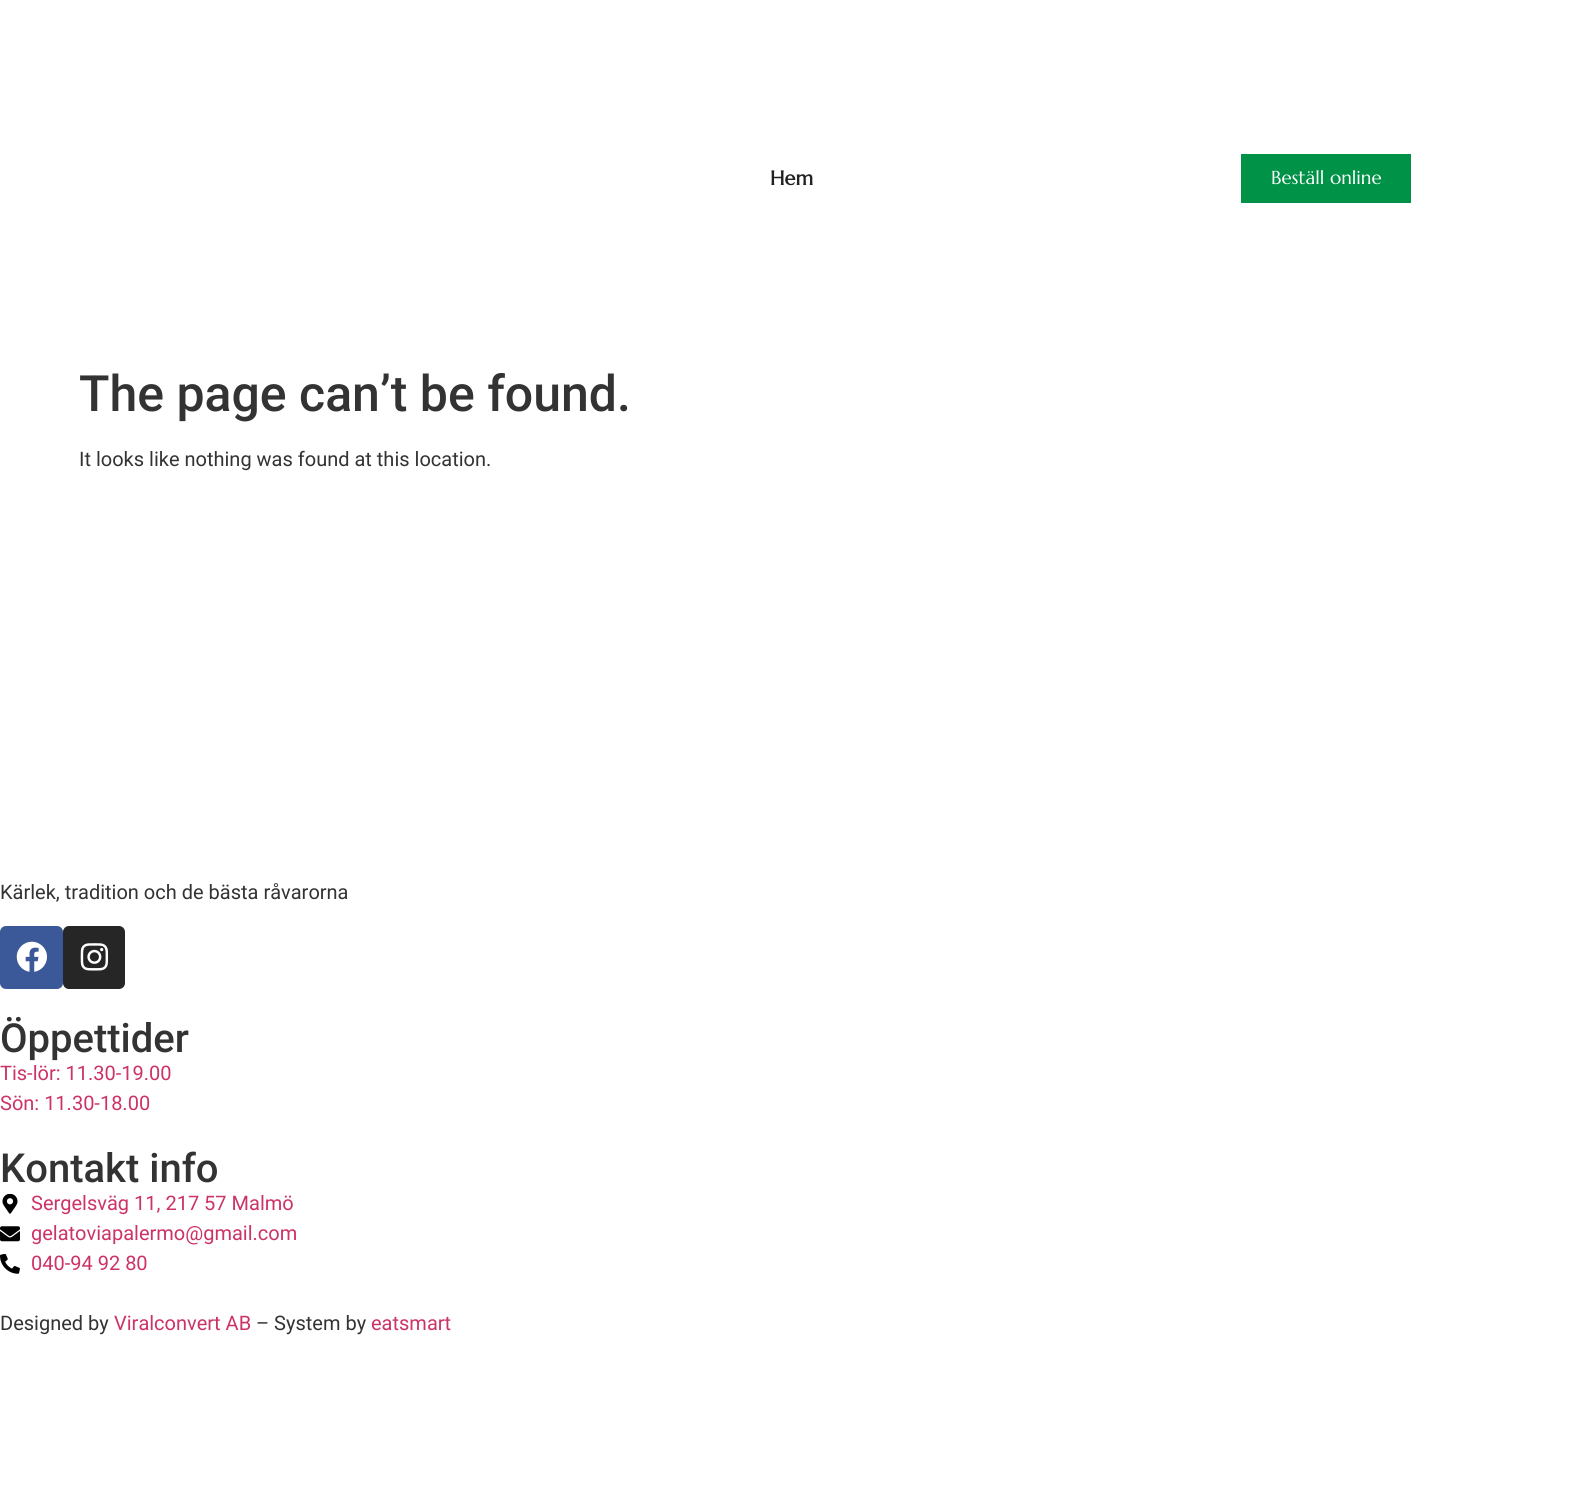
#include <cairo.h>
#include <math.h>
#include <stddef.h>


static void rgb(cairo_t *cr, int r, int g, int b)
{
	cairo_set_source_rgb(cr, r / 255.0, g / 255.0, b / 255.0);
}

static void face(cairo_t *cr, const char *family, double size, int italic, int bold)
{
	cairo_select_font_face(cr, family, italic ? CAIRO_FONT_SLANT_ITALIC : CAIRO_FONT_SLANT_NORMAL,
		bold ? CAIRO_FONT_WEIGHT_BOLD : CAIRO_FONT_WEIGHT_NORMAL);
	cairo_set_font_size(cr, size);
}

static void label(cairo_t *cr, double x, double y, const char *s)
{
	cairo_move_to(cr, x, y);
	cairo_show_text(cr, s);
}

static void rect(cairo_t *cr, double x, double y, double w, double h)
{
	cairo_rectangle(cr, x, y, w, h);
	cairo_fill(cr);
}

static void rrect(cairo_t *cr, double x, double y, double w, double h, double r)
{
	cairo_new_sub_path(cr);
	cairo_arc(cr, x + w - r, y + h - r, r, 0, M_PI / 2);
	cairo_arc(cr, x + r, y + h - r, r, M_PI / 2, M_PI);
	cairo_arc(cr, x + r, y + r, r, M_PI, 1.5 * M_PI);
	cairo_arc(cr, x + w - r, y + r, r, 1.5 * M_PI, 2 * M_PI);
	cairo_close_path(cr);
}

static void image(cairo_t *cr, const char *path, double x, double y, double w, double h)
{
	cairo_surface_t *image = cairo_image_surface_create_from_png(path);
	cairo_save(cr);
	cairo_set_source_surface(cr, image, x, y);
	cairo_rectangle(cr, x, y, w, h);
	cairo_fill(cr);
	cairo_restore(cr);
	cairo_surface_destroy(image);
}

static void draw(cairo_t *cr) {
	rgb(cr, 255, 255, 255);
	cairo_paint(cr);
	face(cr, "Marcellus", 20, 0, 1);
	rgb(cr, 34, 34, 34);
	label(cr, 770, 185, "Hem");
	rgb(cr, 0, 146, 70);
	rect(cr, 1241, 154, 170, 49);
	face(cr, "Marcellus", 18.75, 0, 0);
	rgb(cr, 255, 255, 255);
	label(cr, 1271, 184, "Beställ online");
	face(cr, "Roboto Medium", 50, 0, 0);
	rgb(cr, 51, 51, 51);
	label(cr, 79, 411, "The page can’t be found.");
	face(cr, "Roboto", 20, 0, 0);
	label(cr, 79, 466, "It looks like nothing was found at this location.");
	label(cr, 0, 899, "Kärlek, tradition och de bästa råvarorna");
	rgb(cr, 59, 89, 152);
	rrect(cr, 0, 926, 63, 63, 6);
	cairo_fill(cr);
	image(cr, "image0.png", 16, 941, 31, 31);
	rgb(cr, 38, 38, 38);
	rrect(cr, 63, 926, 62, 63, 6);
	cairo_fill(cr);
	image(cr, "image1.png", 80, 943, 29, 28);
	face(cr, "Roboto Medium", 40, 0, 0);
	rgb(cr, 51, 51, 51);
	label(cr, 0, 1052, "Öppettider");
	face(cr, "Roboto", 20, 0, 0);
	rgb(cr, 204, 51, 102);
	label(cr, 0, 1080, "Tis-lör: 11.30-19.00");
	label(cr, 0, 1110, "Sön: 11.30-18.00");
	face(cr, "Roboto Medium", 40, 0, 0);
	rgb(cr, 51, 51, 51);
	label(cr, 0, 1182, "Kontakt info");
	image(cr, "image2.png", 2, 1194, 16, 20);
	face(cr, "Roboto", 20, 0, 0);
	rgb(cr, 204, 51, 102);
	label(cr, 31, 1210, "Sergelsväg 11, 217 57 Malmö");
	image(cr, "image3.png", 0, 1226, 20, 16);
	label(cr, 31, 1240, "gelatoviapalermo@gmail.com");
	image(cr, "image4.png", 0, 1254, 20, 20);
	label(cr, 31, 1270, "040-94 92 80");
	rgb(cr, 51, 51, 51);
	label(cr, 0, 1330, "Designed by");
	rgb(cr, 204, 51, 102);
	label(cr, 114, 1330, "Viralconvert AB");
	rgb(cr, 51, 51, 51);
	label(cr, 256, 1330, "– System by");
	rgb(cr, 204, 51, 102);
	label(cr, 371, 1330, "eatsmart");
}

int main(void) {
	cairo_surface_t *surface = cairo_image_surface_create(CAIRO_FORMAT_RGB24, 1583, 1497);
	cairo_t *cr = cairo_create(surface);
	cairo_font_options_t *options = cairo_font_options_create();
	cairo_font_options_set_hint_metrics(options, CAIRO_HINT_METRICS_OFF);
	cairo_font_options_set_hint_style(options, CAIRO_HINT_STYLE_NONE);
	cairo_set_font_options(cr, options);
	cairo_set_miter_limit(cr, 4);
	draw(cr);
	cairo_surface_write_to_png(surface, "render.png");
	cairo_font_options_destroy(options);
	cairo_destroy(cr);
	cairo_surface_destroy(surface);
	return 0;
}
